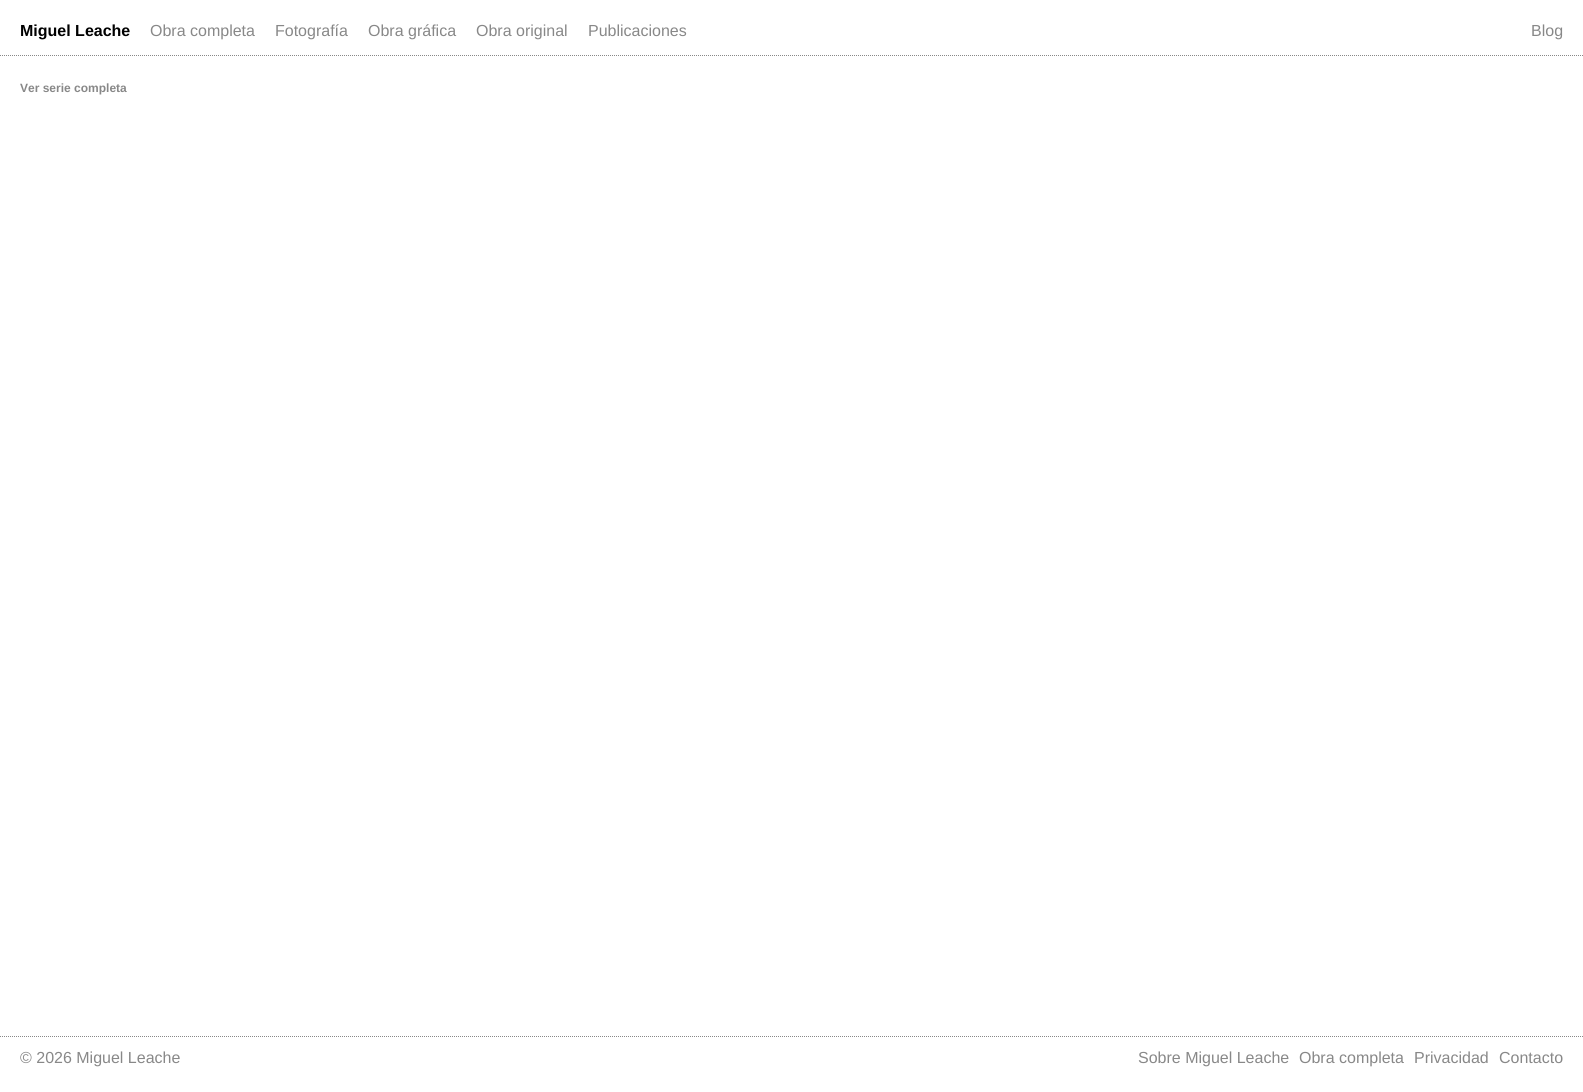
#include <cairo.h>
#include <math.h>
#include <stddef.h>


static void rgb(cairo_t *cr, int r, int g, int b)
{
	cairo_set_source_rgb(cr, r / 255.0, g / 255.0, b / 255.0);
}

static void face(cairo_t *cr, const char *family, double size, int italic, int bold)
{
	cairo_select_font_face(cr, family, italic ? CAIRO_FONT_SLANT_ITALIC : CAIRO_FONT_SLANT_NORMAL,
		bold ? CAIRO_FONT_WEIGHT_BOLD : CAIRO_FONT_WEIGHT_NORMAL);
	cairo_set_font_size(cr, size);
}

static void label(cairo_t *cr, double x, double y, const char *s)
{
	cairo_move_to(cr, x, y);
	cairo_show_text(cr, s);
}

static void draw(cairo_t *cr) {
	rgb(cr, 255, 255, 255);
	cairo_paint(cr);
	cairo_new_path(cr);
	cairo_move_to(cr, 0, 55.5);
	cairo_line_to(cr, 1583, 55.5);
	rgb(cr, 136, 136, 136);
	cairo_set_line_width(cr, 1);
	cairo_set_dash(cr, (double[]){1, 1}, 2, 0);
	cairo_stroke(cr);
	face(cr, "Liberation Sans", 16, 0, 1);
	rgb(cr, 0, 0, 0);
	label(cr, 20, 36, "Miguel Leache");
	face(cr, "Liberation Sans", 16, 0, 0);
	rgb(cr, 136, 136, 136);
	label(cr, 150, 36, "Obra completa");
	label(cr, 275, 36, "Fotografía");
	label(cr, 368, 36, "Obra gráfica");
	label(cr, 476, 36, "Obra original");
	label(cr, 588, 36, "Publicaciones");
	label(cr, 1531, 36, "Blog");
	face(cr, "Liberation Sans", 12, 0, 1);
	label(cr, 20, 92, "Ver serie completa");
	cairo_new_path(cr);
	cairo_move_to(cr, 0, 1036.5);
	cairo_line_to(cr, 1583, 1036.5);
	cairo_stroke(cr);
	face(cr, "Liberation Sans", 16, 0, 0);
	label(cr, 20, 1063, "© 2026 Miguel Leache");
	label(cr, 1138, 1063, "Sobre Miguel Leache");
	label(cr, 1299, 1063, "Obra completa");
	label(cr, 1414, 1063, "Privacidad");
	label(cr, 1499, 1063, "Contacto");
}

int main(void) {
	cairo_surface_t *surface = cairo_image_surface_create(CAIRO_FORMAT_RGB24, 1583, 1092);
	cairo_t *cr = cairo_create(surface);
	cairo_font_options_t *options = cairo_font_options_create();
	cairo_font_options_set_hint_metrics(options, CAIRO_HINT_METRICS_OFF);
	cairo_font_options_set_hint_style(options, CAIRO_HINT_STYLE_NONE);
	cairo_set_font_options(cr, options);
	cairo_set_miter_limit(cr, 4);
	draw(cr);
	cairo_surface_write_to_png(surface, "render.png");
	cairo_font_options_destroy(options);
	cairo_destroy(cr);
	cairo_surface_destroy(surface);
	return 0;
}
